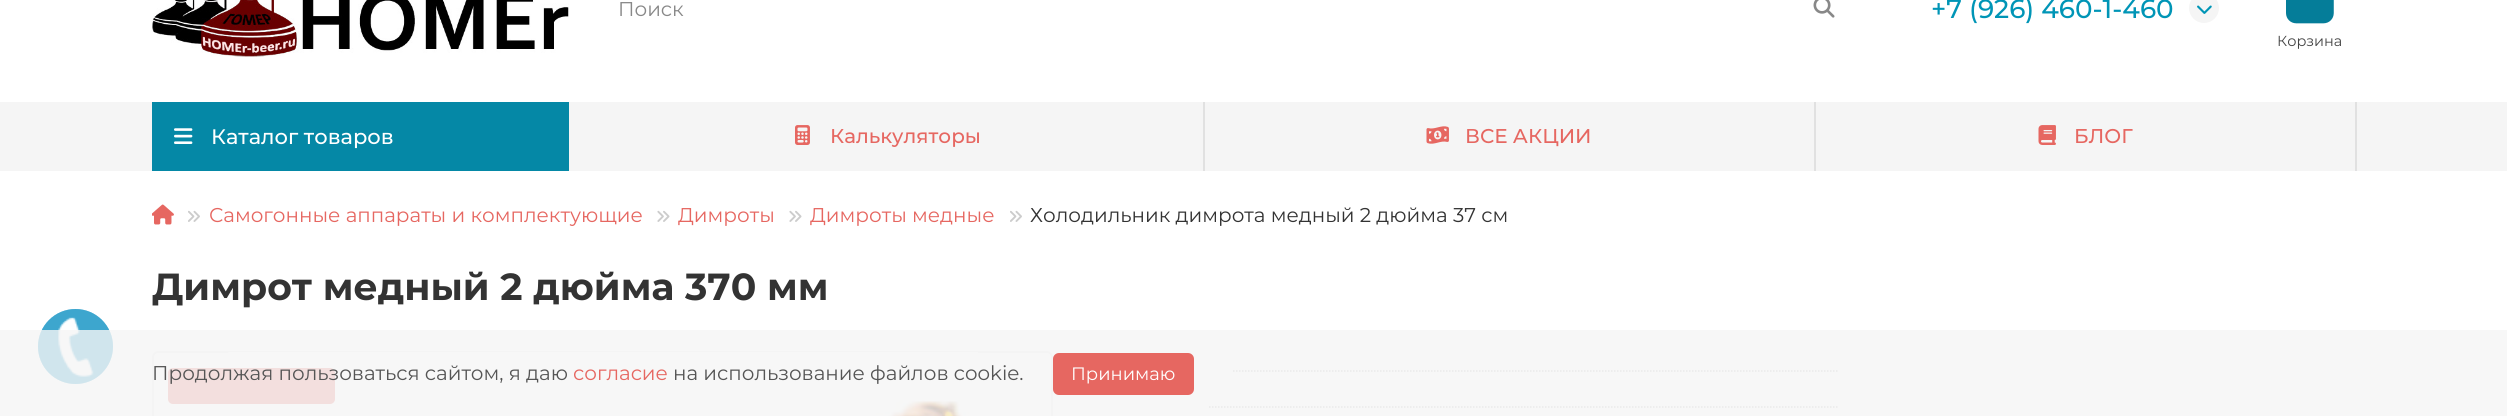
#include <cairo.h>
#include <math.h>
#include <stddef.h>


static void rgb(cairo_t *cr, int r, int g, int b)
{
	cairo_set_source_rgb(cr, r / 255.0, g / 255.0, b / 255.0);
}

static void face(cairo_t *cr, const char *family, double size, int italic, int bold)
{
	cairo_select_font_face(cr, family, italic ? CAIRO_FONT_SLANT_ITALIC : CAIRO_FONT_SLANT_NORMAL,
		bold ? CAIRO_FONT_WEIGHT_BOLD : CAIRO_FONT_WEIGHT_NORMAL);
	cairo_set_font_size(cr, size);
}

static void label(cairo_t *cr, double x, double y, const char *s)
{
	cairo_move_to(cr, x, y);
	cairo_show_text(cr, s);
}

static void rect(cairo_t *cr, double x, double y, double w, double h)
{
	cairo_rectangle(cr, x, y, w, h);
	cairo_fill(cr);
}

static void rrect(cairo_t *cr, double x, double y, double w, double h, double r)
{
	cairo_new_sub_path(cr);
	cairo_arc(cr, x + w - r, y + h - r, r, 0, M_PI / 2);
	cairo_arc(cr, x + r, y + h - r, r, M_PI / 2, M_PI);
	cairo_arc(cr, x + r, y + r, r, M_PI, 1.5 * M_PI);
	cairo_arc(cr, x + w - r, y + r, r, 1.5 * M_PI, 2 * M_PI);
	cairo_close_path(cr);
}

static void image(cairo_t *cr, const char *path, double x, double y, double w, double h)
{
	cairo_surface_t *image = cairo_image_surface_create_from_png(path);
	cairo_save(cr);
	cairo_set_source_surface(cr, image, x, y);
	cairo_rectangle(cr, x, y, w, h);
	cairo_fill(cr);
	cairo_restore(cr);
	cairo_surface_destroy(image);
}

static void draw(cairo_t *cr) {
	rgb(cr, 255, 255, 255);
	cairo_paint(cr);
	image(cr, "image0.png", 152, 0, 417, 57);
	face(cr, "Montserrat", 19.95, 0, 0);
	rgb(cr, 136, 136, 136);
	label(cr, 618, 16, "Поиск");
	image(cr, "image1.png", 1813, 0, 22, 18);
	face(cr, "Montserrat Medium", 26.25, 0, 0);
	rgb(cr, 0, 149, 182);
	label(cr, 1931, 18, "+7 (926) 460-1-460");
	rgb(cr, 245, 245, 245);
	cairo_new_path(cr);
	cairo_arc(cr, 2204, 8, 15, 0, 2 * M_PI);
	cairo_fill(cr);
	image(cr, "image2.png", 2197, 5, 15, 9);
	image(cr, "image3.png", 2286, 0, 48, 24);
	face(cr, "Montserrat", 14.5, 0, 0);
	rgb(cr, 68, 68, 68);
	label(cr, 2277, 46, "Корзина");
	rgb(cr, 245, 245, 245);
	rect(cr, 0, 102, 2507, 69);
	rgb(cr, 5, 136, 166);
	rect(cr, 152, 102, 417, 69);
	image(cr, "image4.png", 174, 128, 19, 16);
	face(cr, "Montserrat Medium", 21, 0, 0);
	rgb(cr, 255, 255, 255);
	label(cr, 211, 144, "Каталог товаров");
	image(cr, "image5.png", 795, 125, 15, 20);
	face(cr, "Montserrat Medium", 19.95, 0, 0);
	rgb(cr, 230, 103, 97);
	label(cr, 830, 143, "Калькуляторы");
	rgb(cr, 225, 225, 225);
	rect(cr, 1203, 102, 2, 69);
	image(cr, "image6.png", 1426, 126, 23, 18);
	rgb(cr, 230, 103, 97);
	label(cr, 1465, 143, "ВСЕ АКЦИИ");
	rgb(cr, 225, 225, 225);
	rect(cr, 1814, 102, 2, 69);
	rect(cr, 2355, 102, 2, 69);
	image(cr, "image7.png", 2038, 125, 18, 20);
	rgb(cr, 230, 103, 97);
	label(cr, 2074, 143, "БЛОГ");
	image(cr, "image8.png", 152, 204, 22, 21);
	image(cr, "image9.png", 188, 210, 12, 12);
	face(cr, "Montserrat", 19.95, 0, 0);
	label(cr, 209, 222, "Самогонные аппараты и комплектующие");
	image(cr, "image10.png", 657, 210, 13, 12);
	label(cr, 678, 222, "Димроты");
	image(cr, "image10.png", 789, 210, 13, 12);
	label(cr, 810, 222, "Димроты медные");
	image(cr, "image9.png", 1010, 210, 12, 12);
	rgb(cr, 51, 51, 51);
	label(cr, 1030, 222, "Холодильник димрота медный 2 дюйма 37 см");
	face(cr, "Montserrat", 37.75, 0, 1);
	label(cr, 152, 300, "Димрот медный 2 дюйма 370 мм");
	rrect(cr, 153, 352, 899, 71, 5);
	rgb(cr, 240, 240, 240);
	cairo_stroke(cr);
	image(cr, "image11.png", 228, 352, 750, 64);
	rgb(cr, 235, 133, 129);
	rrect(cr, 168, 368, 167, 36, 5);
	cairo_fill(cr);
	cairo_new_path(cr);
	cairo_move_to(cr, 1233, 371);
	cairo_line_to(cr, 1837.5, 371);
	rgb(cr, 187, 187, 187);
	cairo_set_line_width(cr, 1.5);
	cairo_set_dash(cr, (double[]){1.5, 1.5}, 2, 0);
	cairo_stroke(cr);
	cairo_new_path(cr);
	cairo_move_to(cr, 1209, 407);
	cairo_line_to(cr, 1837.5, 407);
	cairo_stroke(cr);
	rgb(cr, 111, 189, 219);
	cairo_arc(cr, 75.5, 346.5, 37.5, 0, 2 * M_PI);
	cairo_fill(cr);
	image(cr, "image12.png", 58, 317, 36, 60);
	cairo_set_source_rgba(cr, 0.133, 0.604, 0.784, 0.65);
	cairo_arc(cr, 75.5, 346.5, 37.5, 0, 2 * M_PI);
	cairo_fill(cr);
	image(cr, "image13.png", 58, 317, 36, 60);
	cairo_set_source_rgba(cr, 0.961, 0.961, 0.961, 0.8);
	rect(cr, 0, 330, 2507, 86);
	face(cr, "Montserrat", 19.95, 0, 0);
	rgb(cr, 85, 85, 85);
	label(cr, 152, 380, "Продолжая пользоваться сайтом, я даю");
	rgb(cr, 230, 103, 97);
	label(cr, 573, 380, "согласие");
	rgb(cr, 85, 85, 85);
	label(cr, 673, 380, "на использование файлов cookie.");
	rgb(cr, 230, 103, 97);
	rrect(cr, 1053, 353, 141, 42, 6);
	cairo_fill(cr);
	face(cr, "Montserrat", 18, 0, 0);
	rgb(cr, 255, 255, 255);
	label(cr, 1071, 380, "Принимаю");
}

int main(void) {
	cairo_surface_t *surface = cairo_image_surface_create(CAIRO_FORMAT_RGB24, 2507, 416);
	cairo_t *cr = cairo_create(surface);
	cairo_font_options_t *options = cairo_font_options_create();
	cairo_font_options_set_hint_metrics(options, CAIRO_HINT_METRICS_OFF);
	cairo_font_options_set_hint_style(options, CAIRO_HINT_STYLE_NONE);
	cairo_set_font_options(cr, options);
	cairo_set_miter_limit(cr, 4);
	draw(cr);
	cairo_surface_write_to_png(surface, "render.png");
	cairo_font_options_destroy(options);
	cairo_destroy(cr);
	cairo_surface_destroy(surface);
	return 0;
}
